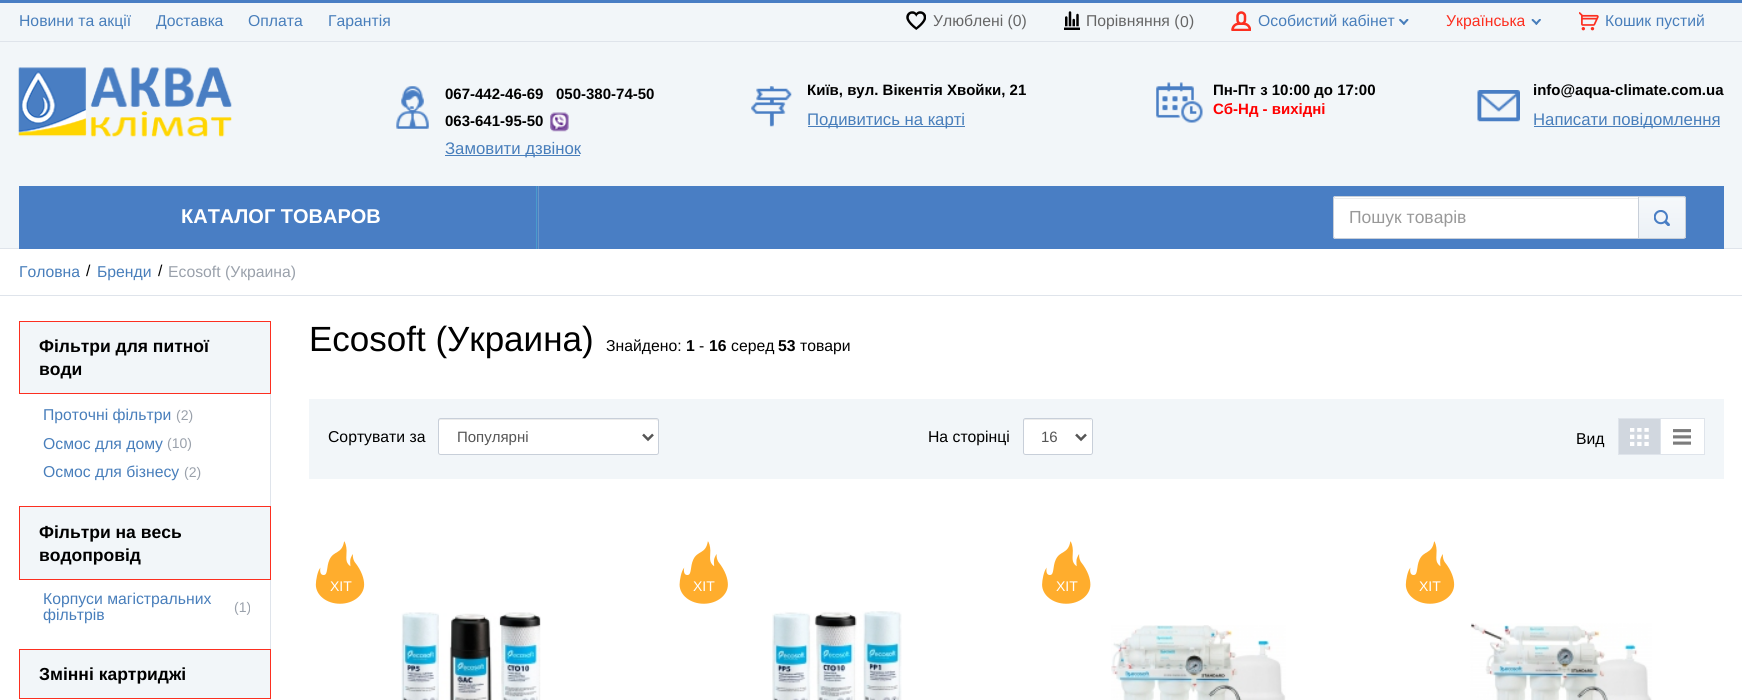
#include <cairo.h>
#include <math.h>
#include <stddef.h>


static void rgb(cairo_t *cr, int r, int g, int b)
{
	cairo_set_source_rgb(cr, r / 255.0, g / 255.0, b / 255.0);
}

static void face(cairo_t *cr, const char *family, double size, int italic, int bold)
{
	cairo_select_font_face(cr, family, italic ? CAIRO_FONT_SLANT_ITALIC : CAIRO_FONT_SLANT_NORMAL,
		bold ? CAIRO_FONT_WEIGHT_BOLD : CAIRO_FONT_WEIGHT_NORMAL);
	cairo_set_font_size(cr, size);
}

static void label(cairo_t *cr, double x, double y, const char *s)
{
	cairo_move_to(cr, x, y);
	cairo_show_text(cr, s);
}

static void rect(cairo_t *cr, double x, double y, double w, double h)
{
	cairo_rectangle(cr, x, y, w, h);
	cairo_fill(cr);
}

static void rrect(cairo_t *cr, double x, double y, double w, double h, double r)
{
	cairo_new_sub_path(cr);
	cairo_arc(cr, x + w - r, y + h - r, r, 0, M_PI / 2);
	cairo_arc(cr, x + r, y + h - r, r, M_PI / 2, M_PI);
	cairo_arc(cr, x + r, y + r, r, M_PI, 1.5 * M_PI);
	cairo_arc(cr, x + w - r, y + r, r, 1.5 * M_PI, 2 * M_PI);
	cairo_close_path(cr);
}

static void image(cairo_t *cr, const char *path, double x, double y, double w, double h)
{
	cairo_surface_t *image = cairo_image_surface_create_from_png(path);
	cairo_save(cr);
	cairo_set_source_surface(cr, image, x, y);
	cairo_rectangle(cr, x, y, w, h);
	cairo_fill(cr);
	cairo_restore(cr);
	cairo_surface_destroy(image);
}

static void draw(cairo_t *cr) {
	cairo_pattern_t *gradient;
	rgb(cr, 255, 255, 255);
	cairo_paint(cr);
	rgb(cr, 242, 246, 249);
	rect(cr, 0, 3, 1742, 245);
	rgb(cr, 223, 228, 235);
	rect(cr, 0, 248, 1742, 1);
	rgb(cr, 73, 126, 196);
	rect(cr, 0, 0, 1742, 3);
	rgb(cr, 223, 228, 235);
	rect(cr, 0, 41, 1742, 1);
	face(cr, "Liberation Sans", 15.75, 0, 0);
	rgb(cr, 72, 126, 187);
	label(cr, 19, 26, "Новини та акції");
	label(cr, 156, 26, "Доставка");
	label(cr, 248, 26, "Оплата");
	label(cr, 328, 26, "Гарантія");
	image(cr, "image0.png", 906, 11, 20, 19);
	rgb(cr, 102, 102, 102);
	label(cr, 933, 26, "Улюблені (0)");
	image(cr, "image1.png", 1064, 11, 16, 19);
	label(cr, 1086, 26, "Порівняння (");
	label(cr, 1180, 27, "0");
	label(cr, 1189, 26, ")");
	image(cr, "image2.png", 1231, 11, 20, 20);
	rgb(cr, 72, 126, 187);
	label(cr, 1258, 26, "Особистий кабінет");
	image(cr, "image3.png", 1399, 19, 10, 6);
	rgb(cr, 252, 47, 32);
	label(cr, 1446, 26, "Українська");
	image(cr, "image4.png", 1531, 19, 10, 6);
	image(cr, "image5.png", 1579, 12, 20, 19);
	rgb(cr, 72, 126, 187);
	label(cr, 1605, 26, "Кошик пустий");
	image(cr, "image6.png", 18, 67, 214, 70);
	image(cr, "image7.png", 396, 86, 33, 43);
	face(cr, "Liberation Sans", 15, 0, 1);
	rgb(cr, 0, 0, 0);
	label(cr, 445, 99, "067-442-46-69");
	label(cr, 556, 99, "050-380-74-50");
	image(cr, "image8.png", 550, 112, 19, 20);
	label(cr, 445, 126, "063-641-95-50");
	rgb(cr, 72, 126, 187);
	rect(cr, 445, 155, 135, 1);
	face(cr, "Liberation Sans", 16.75, 0, 0);
	label(cr, 445, 154, "Замовити дзвінок");
	image(cr, "image9.png", 751, 86, 41, 41);
	face(cr, "Liberation Sans", 15, 0, 1);
	rgb(cr, 0, 0, 0);
	label(cr, 807, 95, "Київ, вул. Вікентія Хвойки, 21");
	rgb(cr, 72, 126, 187);
	rect(cr, 808, 126, 157, 1);
	face(cr, "Liberation Sans", 16.75, 0, 0);
	label(cr, 807, 125, "Подивитись на карті");
	image(cr, "image10.png", 1156, 82, 47, 41);
	face(cr, "Liberation Sans", 15, 0, 1);
	rgb(cr, 0, 0, 0);
	label(cr, 1213, 95, "Пн-Пт з 10:00 до 17:00");
	rgb(cr, 255, 0, 0);
	label(cr, 1213, 114, "Сб-Нд - вихідні");
	image(cr, "image11.png", 1477, 90, 43, 32);
	rgb(cr, 0, 0, 0);
	label(cr, 1533, 95, "info@aqua-climate.com.ua");
	rgb(cr, 72, 126, 187);
	rect(cr, 1534, 126, 186, 1);
	face(cr, "Liberation Sans", 16.75, 0, 0);
	label(cr, 1533, 125, "Написати повідомлення");
	rgb(cr, 73, 126, 196);
	rect(cr, 19, 186, 1705, 63);
	rgb(cr, 73, 155, 205);
	rect(cr, 536, 186, 1, 63);
	face(cr, "Liberation Sans", 20, 0, 1);
	rgb(cr, 255, 255, 255);
	label(cr, 181, 223, "КАТАЛОГ ТОВАРОВ");
	rgb(cr, 105, 150, 199);
	rect(cr, 538, 186, 1, 63);
	rgb(cr, 255, 255, 255);
	cairo_new_path(cr);
	cairo_move_to(cr, 1335.5, 196);
	cairo_line_to(cr, 1639, 196);
	cairo_line_to(cr, 1639, 239);
	cairo_line_to(cr, 1335.5, 239);
	cairo_curve_to(cr, 1334, 239, 1333, 238, 1333, 236.5);
	cairo_line_to(cr, 1333, 198.5);
	cairo_curve_to(cr, 1333, 197, 1334, 196, 1335.5, 196);
	cairo_close_path(cr);
	cairo_fill(cr);
	rgb(cr, 236, 236, 236);
	cairo_new_path(cr);
	cairo_move_to(cr, 1335, 198);
	cairo_line_to(cr, 1334, 199);
	cairo_line_to(cr, 1638, 199);
	cairo_line_to(cr, 1638, 198);
	cairo_close_path(cr);
	cairo_fill(cr);
	cairo_new_path(cr);
	cairo_move_to(cr, 1335.5, 196.5);
	cairo_line_to(cr, 1638.5, 196.5);
	cairo_line_to(cr, 1638.5, 238.5);
	cairo_line_to(cr, 1335.5, 238.5);
	cairo_curve_to(cr, 1334.5, 238.5, 1333.5, 237.5, 1333.5, 236.5);
	cairo_line_to(cr, 1333.5, 198.5);
	cairo_curve_to(cr, 1333.5, 197.5, 1334.5, 196.5, 1335.5, 196.5);
	cairo_close_path(cr);
	rgb(cr, 200, 207, 217);
	cairo_set_line_width(cr, 1);
	cairo_stroke(cr);
	face(cr, "Liberation Sans", 17.5, 0, 0);
	rgb(cr, 153, 153, 153);
	label(cr, 1349, 223, "Пошук товарів");
	cairo_save(cr);
	cairo_new_path(cr);
	cairo_move_to(cr, 1638, 196);
	cairo_line_to(cr, 1683.5, 196);
	cairo_curve_to(cr, 1685, 196, 1686, 197, 1686, 198.5);
	cairo_line_to(cr, 1686, 236.5);
	cairo_curve_to(cr, 1686, 238, 1685, 239, 1683.5, 239);
	cairo_line_to(cr, 1638, 239);
	cairo_close_path(cr);
	cairo_clip(cr);
	gradient = cairo_pattern_create_linear(1662, 158, 1662, 198);
	cairo_pattern_add_color_stop_rgba(gradient, 0, 0.961, 0.973, 0.984, 1);
	cairo_pattern_add_color_stop_rgba(gradient, 1, 0.925, 0.945, 0.965, 1);
	cairo_set_source(cr, gradient);
	cairo_pattern_destroy(gradient);
	rect(cr, 1638, 196, 48, 2);
	cairo_restore(cr);
	gradient = cairo_pattern_create_linear(1662, 198, 1662, 238);
	cairo_pattern_add_color_stop_rgba(gradient, 0, 0.961, 0.973, 0.984, 1);
	cairo_pattern_add_color_stop_rgba(gradient, 1, 0.925, 0.945, 0.965, 1);
	cairo_set_source(cr, gradient);
	cairo_pattern_destroy(gradient);
	rect(cr, 1639, 198, 47, 40);
	cairo_new_path(cr);
	cairo_move_to(cr, 1638.5, 196.5);
	cairo_line_to(cr, 1683.5, 196.5);
	cairo_curve_to(cr, 1684.5, 196.5, 1685.5, 197.5, 1685.5, 198.5);
	cairo_line_to(cr, 1685.5, 236.5);
	cairo_curve_to(cr, 1685.5, 237.5, 1684.5, 238.5, 1683.5, 238.5);
	cairo_line_to(cr, 1638.5, 238.5);
	cairo_close_path(cr);
	rgb(cr, 200, 207, 217);
	cairo_stroke(cr);
	image(cr, "image12.png", 1654, 210, 16, 16);
	rgb(cr, 223, 228, 235);
	rect(cr, 0, 295, 1742, 1);
	face(cr, "Liberation Sans", 15.75, 0, 0);
	rgb(cr, 72, 126, 187);
	label(cr, 19, 277, "Головна");
	rgb(cr, 0, 0, 0);
	label(cr, 86, 276, "/");
	rgb(cr, 72, 126, 187);
	label(cr, 97, 277, "Бренди");
	rgb(cr, 0, 0, 0);
	label(cr, 158, 276, "/");
	rgb(cr, 154, 161, 171);
	label(cr, 168, 277, "Ecosoft (Украина)");
	rgb(cr, 242, 246, 249);
	cairo_rectangle(cr, 19.5, 321.5, 251, 72);
	cairo_fill_preserve(cr);
	rgb(cr, 252, 47, 32);
	cairo_stroke(cr);
	face(cr, "Liberation Sans", 17.5, 0, 1);
	rgb(cr, 0, 0, 0);
	label(cr, 39, 352, "Фільтри для питної");
	label(cr, 39, 375, "води");
	rgb(cr, 223, 228, 235);
	rect(cr, 270, 394, 1, 112);
	face(cr, "Liberation Sans", 15.75, 0, 0);
	rgb(cr, 72, 126, 187);
	label(cr, 43, 420, "Проточні фільтри");
	face(cr, "Liberation Sans", 14, 0, 0);
	rgb(cr, 154, 161, 171);
	label(cr, 176, 420, "(2)");
	face(cr, "Liberation Sans", 15.75, 0, 0);
	rgb(cr, 72, 126, 187);
	label(cr, 43, 449, "Осмос для дому");
	face(cr, "Liberation Sans", 14, 0, 0);
	rgb(cr, 154, 161, 171);
	label(cr, 167, 448, "(10)");
	face(cr, "Liberation Sans", 15.75, 0, 0);
	rgb(cr, 72, 126, 187);
	label(cr, 43, 477, "Осмос для бізнесу");
	face(cr, "Liberation Sans", 14, 0, 0);
	rgb(cr, 154, 161, 171);
	label(cr, 184, 477, "(2)");
	rgb(cr, 242, 246, 249);
	cairo_rectangle(cr, 19.5, 506.5, 251, 73);
	cairo_fill_preserve(cr);
	rgb(cr, 252, 47, 32);
	cairo_stroke(cr);
	face(cr, "Liberation Sans", 17.5, 0, 1);
	rgb(cr, 0, 0, 0);
	label(cr, 39, 538, "Фільтри на весь");
	label(cr, 39, 561, "водопровід");
	rgb(cr, 223, 228, 235);
	rect(cr, 270, 580, 1, 69);
	face(cr, "Liberation Sans", 15.75, 0, 0);
	rgb(cr, 72, 126, 187);
	label(cr, 43, 604, "Корпуси магістральних");
	label(cr, 43, 620, "фільтрів");
	face(cr, "Liberation Sans", 14, 0, 0);
	rgb(cr, 154, 161, 171);
	label(cr, 234, 612, "(1)");
	rgb(cr, 242, 246, 249);
	cairo_rectangle(cr, 19.5, 649.5, 251, 49);
	cairo_fill_preserve(cr);
	rgb(cr, 252, 47, 32);
	cairo_stroke(cr);
	face(cr, "Liberation Sans", 17.5, 0, 1);
	rgb(cr, 0, 0, 0);
	label(cr, 39, 680, "Змінні картриджі");
	rgb(cr, 223, 228, 235);
	rect(cr, 270, 699, 1, 1);
	face(cr, "Liberation Sans", 35, 0, 0);
	rgb(cr, 0, 0, 0);
	label(cr, 309, 351, "Ecosoft (Украина)");
	face(cr, "Liberation Sans", 15.75, 0, 0);
	label(cr, 606, 351, "Знайдено:");
	face(cr, "Liberation Sans", 15.75, 0, 1);
	label(cr, 686, 351, "1");
	face(cr, "Liberation Sans", 15.75, 0, 0);
	label(cr, 699, 351, "-");
	face(cr, "Liberation Sans", 15.75, 0, 1);
	label(cr, 709, 351, "16");
	face(cr, "Liberation Sans", 15.75, 0, 0);
	label(cr, 731, 351, "серед");
	face(cr, "Liberation Sans", 15.75, 0, 1);
	label(cr, 778, 351, "53");
	face(cr, "Liberation Sans", 15.75, 0, 0);
	label(cr, 800, 351, "товари");
	rgb(cr, 242, 246, 249);
	rect(cr, 309, 399, 1415, 80);
	rgb(cr, 0, 0, 0);
	label(cr, 328, 442, "Сортувати за");
	rgb(cr, 255, 255, 255);
	rrect(cr, 438, 418, 221, 37, 2.5);
	cairo_fill(cr);
	rgb(cr, 236, 236, 236);
	cairo_new_path(cr);
	cairo_move_to(cr, 440, 420);
	cairo_line_to(cr, 656, 420);
	cairo_line_to(cr, 658, 421);
	cairo_curve_to(cr, 658, 420, 658, 419, 657, 419);
	cairo_line_to(cr, 440, 419);
	cairo_line_to(cr, 439, 419);
	cairo_line_to(cr, 439, 421);
	cairo_close_path(cr);
	cairo_fill(cr);
	rrect(cr, 438.5, 418.5, 220, 36, 2);
	rgb(cr, 200, 207, 217);
	cairo_stroke(cr);
	cairo_new_path(cr);
	cairo_move_to(cr, 643, 434.5);
	cairo_line_to(cr, 648, 439.5);
	cairo_line_to(cr, 653, 434.5);
	rgb(cr, 85, 85, 85);
	cairo_set_line_width(cr, 2.5);
	cairo_stroke(cr);
	face(cr, "Liberation Sans", 15, 0, 0);
	label(cr, 457, 442, "Популярні");
	face(cr, "Liberation Sans", 15.75, 0, 0);
	rgb(cr, 0, 0, 0);
	label(cr, 928, 442, "На сторінці");
	rgb(cr, 255, 255, 255);
	rrect(cr, 1023, 418, 70, 37, 2.5);
	cairo_fill(cr);
	rgb(cr, 236, 236, 236);
	cairo_new_path(cr);
	cairo_move_to(cr, 1025, 420);
	cairo_line_to(cr, 1090, 420);
	cairo_line_to(cr, 1091, 421);
	cairo_curve_to(cr, 1091, 416, 1083, 419, 1079, 419);
	cairo_line_to(cr, 1036, 419);
	cairo_curve_to(cr, 1032, 419, 1024, 416, 1024, 421);
	cairo_close_path(cr);
	cairo_fill(cr);
	rrect(cr, 1023.5, 418.5, 69, 36, 2);
	rgb(cr, 200, 207, 217);
	cairo_set_line_width(cr, 1);
	cairo_stroke(cr);
	cairo_new_path(cr);
	cairo_move_to(cr, 1076, 434.5);
	cairo_line_to(cr, 1081, 439.5);
	cairo_line_to(cr, 1086, 434.5);
	rgb(cr, 85, 85, 85);
	cairo_set_line_width(cr, 2.5);
	cairo_stroke(cr);
	face(cr, "Liberation Sans", 15, 0, 0);
	label(cr, 1041, 442, "16");
	face(cr, "Liberation Sans", 15.75, 0, 0);
	rgb(cr, 0, 0, 0);
	label(cr, 1576, 444, "Вид");
	rgb(cr, 209, 215, 223);
	cairo_rectangle(cr, 1618.5, 418.5, 42, 36);
	cairo_fill_preserve(cr);
	rgb(cr, 223, 228, 235);
	cairo_set_line_width(cr, 1);
	cairo_stroke(cr);
	image(cr, "image13.png", 1630, 428, 19, 18);
	rgb(cr, 255, 255, 255);
	rect(cr, 1661, 419, 43, 35);
	rgb(cr, 223, 228, 235);
	rect(cr, 1661, 418, 44, 1);
	rect(cr, 1704, 418, 1, 37);
	rect(cr, 1661, 454, 44, 1);
	image(cr, "image14.png", 1673, 429, 18, 16);
	image(cr, "image15.png", 315, 541, 50, 63);
	face(cr, "Liberation Sans", 14, 0, 0);
	rgb(cr, 255, 255, 255);
	label(cr, 330, 591, "ХІТ");
	image(cr, "image16.png", 401, 612, 140, 88);
	image(cr, "image17.png", 679, 541, 49, 63);
	label(cr, 693, 591, "ХІТ");
	image(cr, "image18.png", 772, 611, 130, 89);
	image(cr, "image19.png", 1042, 541, 49, 63);
	label(cr, 1056, 591, "ХІТ");
	image(cr, "image20.png", 1111, 625, 175, 75);
	image(cr, "image15.png", 1405, 541, 50, 63);
	label(cr, 1419, 591, "ХІТ");
	image(cr, "image21.png", 1470, 623, 182, 77);
}

int main(void) {
	cairo_surface_t *surface = cairo_image_surface_create(CAIRO_FORMAT_RGB24, 1742, 700);
	cairo_t *cr = cairo_create(surface);
	cairo_font_options_t *options = cairo_font_options_create();
	cairo_font_options_set_hint_metrics(options, CAIRO_HINT_METRICS_OFF);
	cairo_font_options_set_hint_style(options, CAIRO_HINT_STYLE_NONE);
	cairo_set_font_options(cr, options);
	cairo_set_miter_limit(cr, 4);
	draw(cr);
	cairo_surface_write_to_png(surface, "render.png");
	cairo_font_options_destroy(options);
	cairo_destroy(cr);
	cairo_surface_destroy(surface);
	return 0;
}
